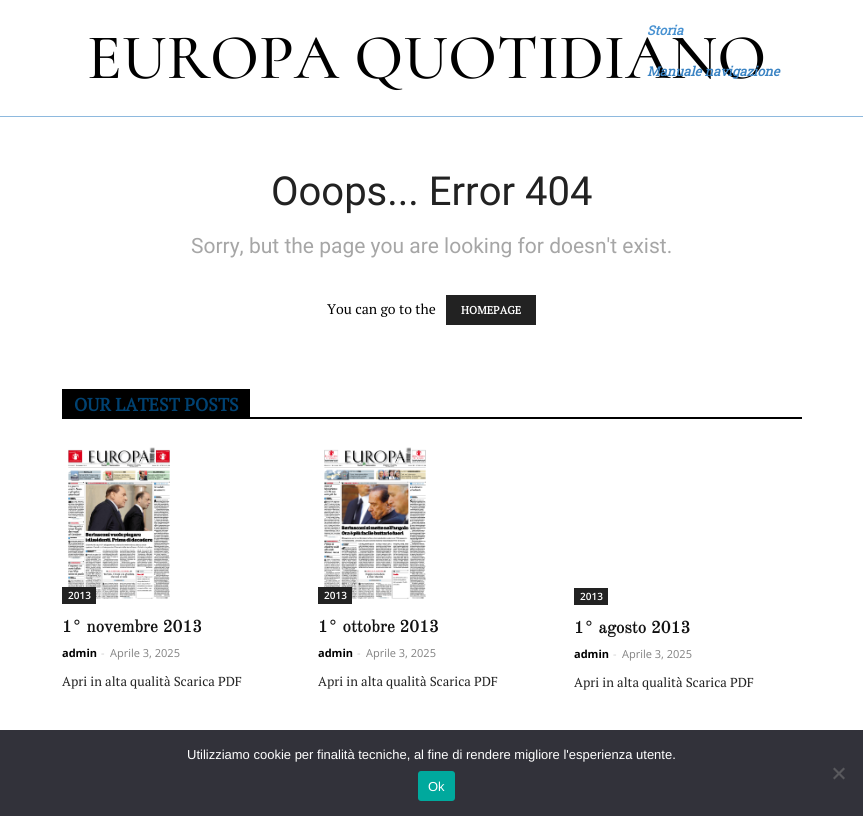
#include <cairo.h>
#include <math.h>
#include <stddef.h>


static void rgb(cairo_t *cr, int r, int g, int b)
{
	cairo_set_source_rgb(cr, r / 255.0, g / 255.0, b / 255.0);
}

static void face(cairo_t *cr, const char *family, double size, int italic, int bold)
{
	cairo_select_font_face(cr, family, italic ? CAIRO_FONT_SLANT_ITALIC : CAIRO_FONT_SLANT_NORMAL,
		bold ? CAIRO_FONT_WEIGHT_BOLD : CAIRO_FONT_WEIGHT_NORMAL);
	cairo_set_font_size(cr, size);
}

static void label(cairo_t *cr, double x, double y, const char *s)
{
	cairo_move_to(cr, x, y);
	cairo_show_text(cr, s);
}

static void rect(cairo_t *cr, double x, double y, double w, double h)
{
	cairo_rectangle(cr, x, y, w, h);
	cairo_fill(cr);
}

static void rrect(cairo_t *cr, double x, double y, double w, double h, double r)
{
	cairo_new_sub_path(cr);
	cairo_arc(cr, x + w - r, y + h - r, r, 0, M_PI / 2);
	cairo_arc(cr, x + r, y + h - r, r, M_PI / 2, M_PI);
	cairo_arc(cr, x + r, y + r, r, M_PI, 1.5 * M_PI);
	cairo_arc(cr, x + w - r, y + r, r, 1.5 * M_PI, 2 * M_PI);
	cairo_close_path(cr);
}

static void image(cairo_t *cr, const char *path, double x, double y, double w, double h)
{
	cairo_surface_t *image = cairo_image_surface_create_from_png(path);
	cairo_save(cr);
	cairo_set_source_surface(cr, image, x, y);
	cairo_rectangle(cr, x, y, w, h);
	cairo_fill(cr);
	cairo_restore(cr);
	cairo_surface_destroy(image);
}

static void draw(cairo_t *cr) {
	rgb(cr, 255, 255, 255);
	cairo_paint(cr);
	face(cr, "Roboto Slab", 13, 1, 1);
	rgb(cr, 71, 145, 209);
	label(cr, 647, 35, "Storia");
	face(cr, "Cormorant Medium", 64, 0, 0);
	rgb(cr, 0, 0, 0);
	label(cr, 87, 78, "EUROPA QUOTIDIANO");
	face(cr, "Roboto Slab", 13, 1, 1);
	rgb(cr, 58, 131, 195);
	label(cr, 647, 76, "Manuale navigazione");
	cairo_new_path(cr);
	cairo_move_to(cr, 0.5, 116.5);
	cairo_line_to(cr, 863.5, 116.5);
	rgb(cr, 30, 115, 190);
	cairo_set_line_width(cr, 1);
	cairo_set_dash(cr, (double[]){1, 1}, 2, 0);
	cairo_stroke(cr);
	face(cr, "Roboto", 40, 0, 0);
	rgb(cr, 34, 34, 34);
	label(cr, 271, 205, "Ooops... Error 404");
	face(cr, "Roboto", 21, 0, 0);
	rgb(cr, 166, 166, 166);
	label(cr, 191, 253, "Sorry, but the page you are looking for doesn't exist.");
	face(cr, "PT Serif", 14, 0, 0);
	rgb(cr, 0, 0, 0);
	label(cr, 327, 314, "You can go to the");
	rgb(cr, 34, 34, 34);
	rect(cr, 446, 295, 90, 30);
	face(cr, "PT Serif", 11, 0, 1);
	rgb(cr, 255, 255, 255);
	label(cr, 461, 314, "HOMEPAGE");
	rgb(cr, 0, 0, 0);
	rect(cr, 62, 417, 740, 2);
	rect(cr, 62, 389, 188, 28);
	face(cr, "PT Serif", 18, 0, 1);
	rgb(cr, 0, 66, 114);
	label(cr, 74, 411, "OUR LATEST POSTS");
	image(cr, "image0.png", 68, 447, 102, 152);
	rgb(cr, 34, 34, 34);
	rect(cr, 62, 587, 34, 17);
	face(cr, "Open Sans SemiBold", 10, 0, 0);
	rgb(cr, 255, 255, 255);
	label(cr, 68, 599, "2013");
	face(cr, "Old Standard TT", 17, 0, 1);
	rgb(cr, 17, 17, 17);
	label(cr, 62, 632, "1° novembre 2013");
	face(cr, "Open Sans", 11, 0, 1);
	rgb(cr, 0, 0, 0);
	label(cr, 62, 657, "admin");
	face(cr, "Open Sans", 11, 0, 0);
	rgb(cr, 204, 204, 204);
	label(cr, 101, 657, "-");
	rgb(cr, 129, 129, 129);
	label(cr, 110, 657, "Aprile 3, 2025");
	face(cr, "PT Serif", 13, 0, 0);
	rgb(cr, 34, 34, 34);
	label(cr, 62, 686, "Apri in alta qualità Scarica PDF");
	image(cr, "image1.png", 324, 447, 102, 152);
	rect(cr, 318, 587, 34, 17);
	face(cr, "Open Sans SemiBold", 10, 0, 0);
	rgb(cr, 255, 255, 255);
	label(cr, 324, 599, "2013");
	face(cr, "Old Standard TT", 17, 0, 1);
	rgb(cr, 17, 17, 17);
	label(cr, 318, 632, "1° ottobre 2013");
	face(cr, "Open Sans", 11, 0, 1);
	rgb(cr, 0, 0, 0);
	label(cr, 318, 657, "admin");
	face(cr, "Open Sans", 11, 0, 0);
	rgb(cr, 204, 204, 204);
	label(cr, 357, 657, "-");
	rgb(cr, 129, 129, 129);
	label(cr, 366, 657, "Aprile 3, 2025");
	face(cr, "PT Serif", 13, 0, 0);
	rgb(cr, 34, 34, 34);
	label(cr, 318, 686, "Apri in alta qualità Scarica PDF");
	rect(cr, 574, 588, 34, 17);
	face(cr, "Open Sans SemiBold", 10, 0, 0);
	rgb(cr, 255, 255, 255);
	label(cr, 580, 600, "2013");
	face(cr, "Old Standard TT", 17, 0, 1);
	rgb(cr, 17, 17, 17);
	label(cr, 574, 633, "1° agosto 2013");
	face(cr, "Open Sans", 11, 0, 1);
	rgb(cr, 0, 0, 0);
	label(cr, 574, 658, "admin");
	face(cr, "Open Sans", 11, 0, 0);
	rgb(cr, 204, 204, 204);
	label(cr, 613, 658, "-");
	rgb(cr, 129, 129, 129);
	label(cr, 622, 658, "Aprile 3, 2025");
	face(cr, "PT Serif", 13, 0, 0);
	rgb(cr, 34, 34, 34);
	label(cr, 574, 687, "Apri in alta qualità Scarica PDF");
	rgb(cr, 50, 50, 58);
	rect(cr, 0, 730, 863, 86);
	face(cr, "Liberation Sans", 13, 0, 0);
	rgb(cr, 255, 255, 255);
	label(cr, 187, 759, "Utilizziamo cookie per finalità tecniche, al fine di rendere migliore l'esperienza utente.");
	rgb(cr, 89, 89, 93);
	cairo_new_path(cr);
	cairo_move_to(cr, 843.5, 767.5);
	cairo_line_to(cr, 845, 769);
	cairo_line_to(cr, 834.5, 779.5);
	cairo_line_to(cr, 833, 778);
	cairo_close_path(cr);
	cairo_fill(cr);
	cairo_new_path(cr);
	cairo_move_to(cr, 833, 769);
	cairo_line_to(cr, 834.5, 767.5);
	cairo_line_to(cr, 845, 778);
	cairo_line_to(cr, 843.5, 779.5);
	cairo_close_path(cr);
	cairo_fill(cr);
	rgb(cr, 0, 169, 157);
	rrect(cr, 418, 771, 37, 30, 3);
	cairo_fill(cr);
	rgb(cr, 255, 255, 255);
	label(cr, 428, 791, "Ok");
}

int main(void) {
	cairo_surface_t *surface = cairo_image_surface_create(CAIRO_FORMAT_RGB24, 863, 816);
	cairo_t *cr = cairo_create(surface);
	cairo_font_options_t *options = cairo_font_options_create();
	cairo_font_options_set_hint_metrics(options, CAIRO_HINT_METRICS_OFF);
	cairo_font_options_set_hint_style(options, CAIRO_HINT_STYLE_NONE);
	cairo_set_font_options(cr, options);
	cairo_set_miter_limit(cr, 4);
	draw(cr);
	cairo_surface_write_to_png(surface, "render.png");
	cairo_font_options_destroy(options);
	cairo_destroy(cr);
	cairo_surface_destroy(surface);
	return 0;
}
